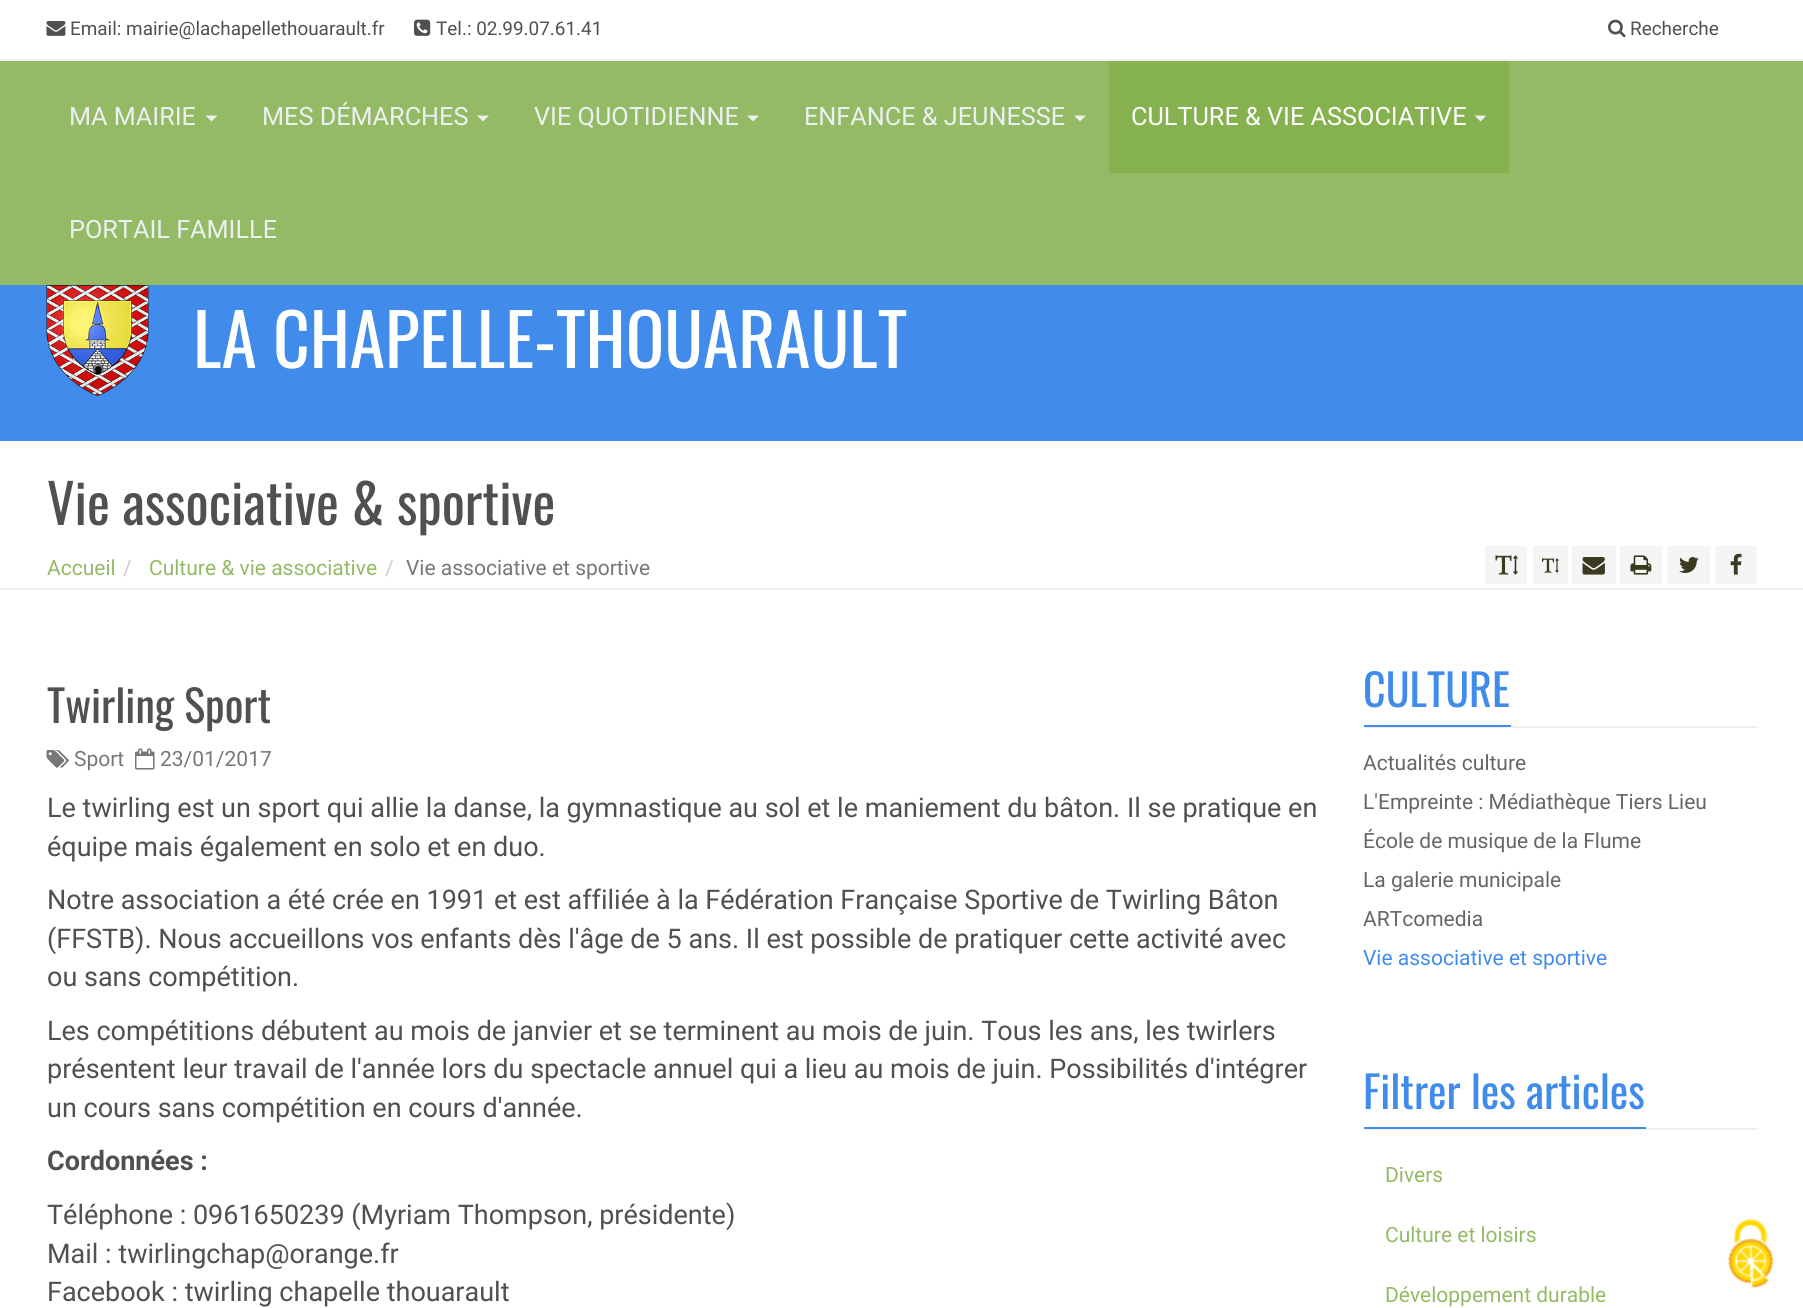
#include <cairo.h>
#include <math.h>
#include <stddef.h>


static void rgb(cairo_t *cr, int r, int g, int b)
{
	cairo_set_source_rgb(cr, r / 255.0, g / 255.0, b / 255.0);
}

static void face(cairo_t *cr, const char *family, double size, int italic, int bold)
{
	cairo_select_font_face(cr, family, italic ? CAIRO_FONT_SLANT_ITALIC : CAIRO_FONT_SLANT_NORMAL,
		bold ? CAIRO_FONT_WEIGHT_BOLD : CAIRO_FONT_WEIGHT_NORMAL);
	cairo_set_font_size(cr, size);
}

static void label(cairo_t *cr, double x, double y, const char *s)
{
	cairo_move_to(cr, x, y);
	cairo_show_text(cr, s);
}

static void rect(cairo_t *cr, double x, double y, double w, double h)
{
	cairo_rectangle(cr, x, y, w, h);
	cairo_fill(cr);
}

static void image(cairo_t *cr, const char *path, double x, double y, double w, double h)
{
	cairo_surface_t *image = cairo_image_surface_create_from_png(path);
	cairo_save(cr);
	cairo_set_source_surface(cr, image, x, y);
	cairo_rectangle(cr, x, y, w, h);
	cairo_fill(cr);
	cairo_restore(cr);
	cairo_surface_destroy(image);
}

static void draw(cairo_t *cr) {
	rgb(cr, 255, 255, 255);
	cairo_paint(cr);
	rgb(cr, 236, 240, 241);
	rect(cr, 0, 59, 1803, 2);
	image(cr, "image0.png", 46, 21, 20, 15);
	face(cr, "Roboto", 18.9, 0, 0);
	rgb(cr, 80, 80, 80);
	label(cr, 70, 35, "Email: mairie@lachapellethouarault.fr");
	image(cr, "image1.png", 414, 19, 17, 17);
	label(cr, 436, 35, "Tel.: 02.99.07.61.41");
	image(cr, "image2.png", 1608, 19, 18, 19);
	label(cr, 1630, 35, "Recherche");
	rgb(cr, 148, 186, 101);
	rect(cr, 0, 61, 1803, 224);
	face(cr, "Roboto", 25.25, 0, 0);
	rgb(cr, 236, 240, 241);
	label(cr, 69, 125, "MA MAIRIE");
	cairo_new_path(cr);
	cairo_move_to(cr, 205.5, 115.5);
	cairo_line_to(cr, 217.5, 115.5);
	cairo_line_to(cr, 211.5, 121.5);
	cairo_close_path(cr);
	cairo_fill(cr);
	label(cr, 262, 125, "MES DÉMARCHES");
	cairo_new_path(cr);
	cairo_move_to(cr, 477, 115.5);
	cairo_line_to(cr, 489, 115.5);
	cairo_line_to(cr, 483, 121.5);
	cairo_close_path(cr);
	cairo_fill(cr);
	label(cr, 534, 125, "VIE QUOTIDIENNE");
	cairo_new_path(cr);
	cairo_move_to(cr, 747, 115.5);
	cairo_line_to(cr, 759, 115.5);
	cairo_line_to(cr, 753, 121.5);
	cairo_close_path(cr);
	cairo_fill(cr);
	label(cr, 804, 125, "ENFANCE & JEUNESSE");
	cairo_new_path(cr);
	cairo_move_to(cr, 1074, 115.5);
	cairo_line_to(cr, 1086, 115.5);
	cairo_line_to(cr, 1080, 121.5);
	cairo_close_path(cr);
	cairo_fill(cr);
	rgb(cr, 133, 177, 78);
	rect(cr, 1109, 61, 400, 112);
	rgb(cr, 255, 255, 255);
	label(cr, 1131, 125, "CULTURE & VIE ASSOCIATIVE");
	rgb(cr, 236, 240, 241);
	cairo_new_path(cr);
	cairo_move_to(cr, 1474.5, 115.5);
	cairo_line_to(cr, 1486.5, 115.5);
	cairo_line_to(cr, 1480.5, 121.5);
	cairo_close_path(cr);
	cairo_fill(cr);
	label(cr, 69, 238, "PORTAIL FAMILLE");
	rgb(cr, 65, 139, 234);
	rect(cr, 0, 285, 1803, 156);
	image(cr, "image3.png", 46, 285, 103, 111);
	face(cr, "Oswald", 71.5, 0, 0);
	rgb(cr, 255, 255, 255);
	label(cr, 193, 368, "LA CHAPELLE-THOUARAULT");
	rgb(cr, 238, 238, 238);
	rect(cr, 0, 588, 1803, 2);
	face(cr, "Oswald", 54.5, 0, 0);
	rgb(cr, 80, 80, 80);
	label(cr, 47, 525, "Vie associative & sportive");
	face(cr, "Roboto", 21, 0, 0);
	rgb(cr, 148, 186, 101);
	label(cr, 47, 575, "Accueil");
	rgb(cr, 204, 204, 204);
	label(cr, 123, 575, "/");
	rgb(cr, 148, 186, 101);
	label(cr, 149, 575, "Culture & vie associative");
	rgb(cr, 204, 204, 204);
	label(cr, 385, 575, "/");
	rgb(cr, 119, 119, 119);
	label(cr, 406, 575, "Vie associative et sportive");
	rgb(cr, 245, 245, 245);
	rect(cr, 1485, 546, 42, 38);
	image(cr, "image4.png", 1495, 555, 23, 20);
	rect(cr, 1533, 546, 35, 38);
	image(cr, "image5.png", 1542, 558, 17, 15);
	rect(cr, 1572, 546, 44, 38);
	image(cr, "image6.png", 1582, 557, 23, 18);
	rect(cr, 1620, 546, 42, 38);
	image(cr, "image7.png", 1630, 555, 22, 20);
	rect(cr, 1667, 546, 43, 38);
	image(cr, "image8.png", 1679, 557, 20, 16);
	rect(cr, 1715, 546, 42, 38);
	image(cr, "image9.png", 1730, 553, 12, 22);
	face(cr, "Oswald", 44, 0, 0);
	rgb(cr, 80, 80, 80);
	label(cr, 47, 723, "Twirling Sport");
	image(cr, "image10.png", 46, 750, 23, 18);
	face(cr, "Roboto", 21, 0, 0);
	rgb(cr, 119, 119, 119);
	label(cr, 74, 766, "Sport");
	image(cr, "image11.png", 135, 748, 20, 22);
	label(cr, 160, 766, "23/01/2017");
	face(cr, "Roboto", 27, 0, 0);
	rgb(cr, 80, 80, 80);
	label(cr, 47, 817, "Le twirling est un sport qui allie la danse, la gymnastique au sol et le maniement du bâton. Il se pratique en");
	label(cr, 47, 856, "équipe mais également en solo et en duo.");
	label(cr, 47, 909, "Notre association a été crée en 1991 et est affiliée à la Fédération Française Sportive de Twirling Bâton");
	label(cr, 47, 948, "(FFSTB). Nous accueillons vos enfants dès l'âge de 5 ans. Il est possible de pratiquer cette activité avec");
	label(cr, 47, 986, "ou sans compétition.");
	label(cr, 47, 1040, "Les compétitions débutent au mois de janvier et se terminent au mois de juin. Tous les ans, les twirlers");
	label(cr, 47, 1078, "présentent leur travail de l'année lors du spectacle annuel qui a lieu au mois de juin. Possibilités d'intégrer");
	label(cr, 47, 1117, "un cours sans compétition en cours d'année.");
	face(cr, "Roboto", 27, 0, 1);
	label(cr, 47, 1170, "Cordonnées :");
	face(cr, "Roboto", 27, 0, 0);
	label(cr, 47, 1224, "Téléphone : 0961650239 (Myriam Thompson, présidente)");
	label(cr, 47, 1263, "Mail : twirlingchap@orange.fr");
	label(cr, 47, 1301, "Facebook : twirling chapelle thouarault");
	rgb(cr, 238, 238, 238);
	rect(cr, 1364, 726, 393, 2);
	face(cr, "Oswald", 44, 0, 0);
	rgb(cr, 65, 139, 234);
	label(cr, 1363, 707, "CULTURE");
	rect(cr, 1364, 725, 147, 2);
	face(cr, "Roboto", 21, 0, 0);
	rgb(cr, 102, 102, 102);
	label(cr, 1363, 770, "Actualités culture");
	label(cr, 1363, 809, "L'Empreinte : Médiathèque Tiers Lieu");
	label(cr, 1363, 848, "École de musique de la Flume");
	label(cr, 1363, 887, "La galerie municipale");
	label(cr, 1363, 926, "ARTcomedia");
	rgb(cr, 65, 139, 234);
	label(cr, 1363, 965, "Vie associative et sportive");
	rgb(cr, 238, 238, 238);
	rect(cr, 1364, 1128, 393, 2);
	face(cr, "Oswald", 44, 0, 0);
	rgb(cr, 65, 139, 234);
	label(cr, 1363, 1109, "Filtrer les articles");
	rect(cr, 1364, 1127, 282, 2);
	face(cr, "Roboto", 21, 0, 0);
	rgb(cr, 148, 186, 101);
	label(cr, 1385, 1182, "Divers");
	label(cr, 1385, 1242, "Culture et loisirs");
	label(cr, 1385, 1302, "Développement durable");
	image(cr, "image12.png", 1727, 1219, 47, 70);
}

int main(void) {
	cairo_surface_t *surface = cairo_image_surface_create(CAIRO_FORMAT_RGB24, 1803, 1308);
	cairo_t *cr = cairo_create(surface);
	cairo_font_options_t *options = cairo_font_options_create();
	cairo_font_options_set_hint_metrics(options, CAIRO_HINT_METRICS_OFF);
	cairo_font_options_set_hint_style(options, CAIRO_HINT_STYLE_NONE);
	cairo_set_font_options(cr, options);
	cairo_set_miter_limit(cr, 4);
	draw(cr);
	cairo_surface_write_to_png(surface, "render.png");
	cairo_font_options_destroy(options);
	cairo_destroy(cr);
	cairo_surface_destroy(surface);
	return 0;
}
